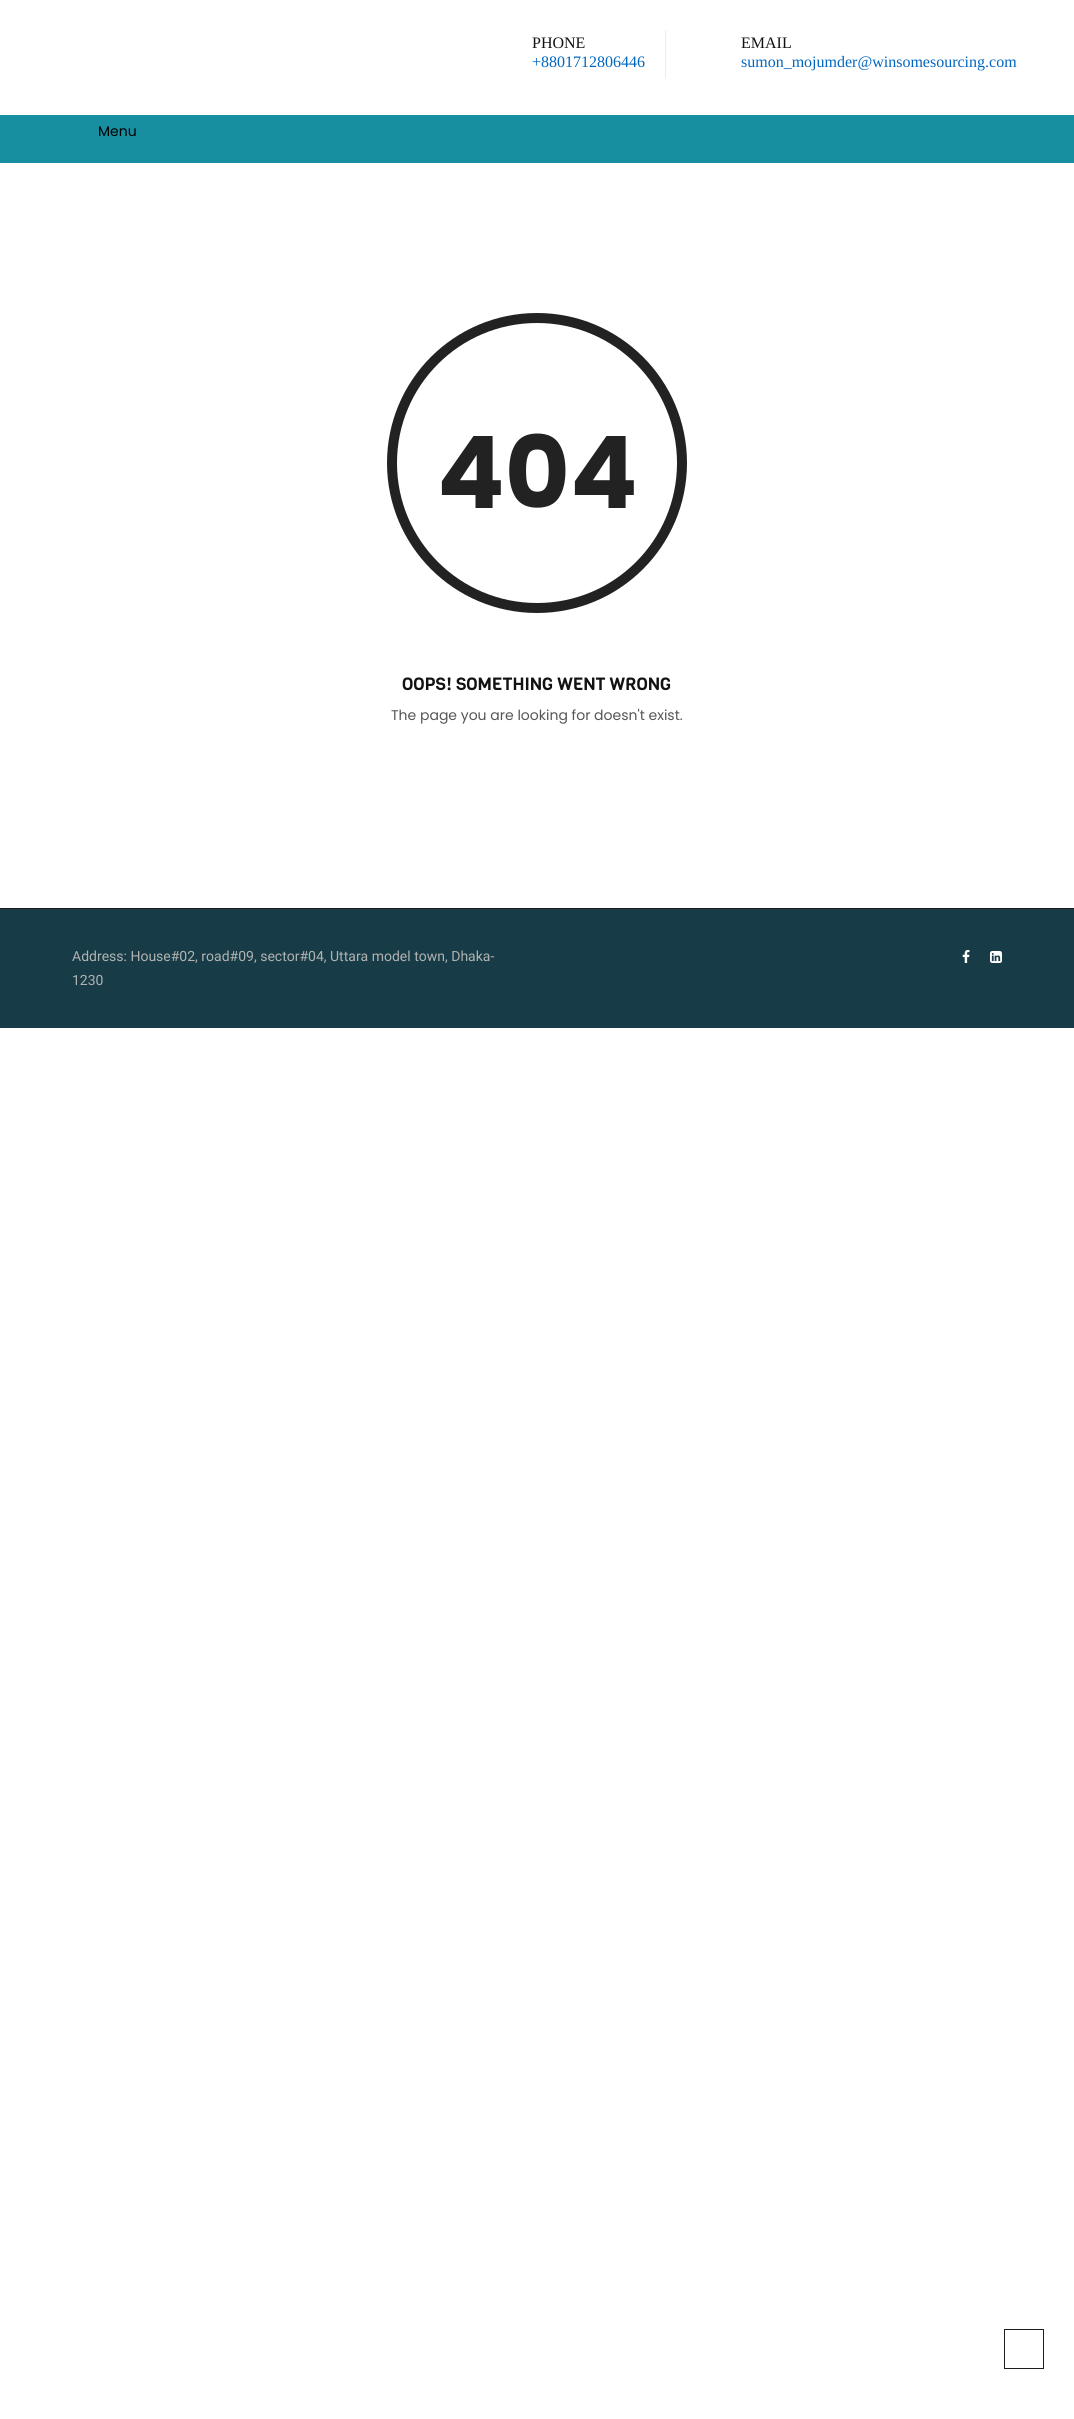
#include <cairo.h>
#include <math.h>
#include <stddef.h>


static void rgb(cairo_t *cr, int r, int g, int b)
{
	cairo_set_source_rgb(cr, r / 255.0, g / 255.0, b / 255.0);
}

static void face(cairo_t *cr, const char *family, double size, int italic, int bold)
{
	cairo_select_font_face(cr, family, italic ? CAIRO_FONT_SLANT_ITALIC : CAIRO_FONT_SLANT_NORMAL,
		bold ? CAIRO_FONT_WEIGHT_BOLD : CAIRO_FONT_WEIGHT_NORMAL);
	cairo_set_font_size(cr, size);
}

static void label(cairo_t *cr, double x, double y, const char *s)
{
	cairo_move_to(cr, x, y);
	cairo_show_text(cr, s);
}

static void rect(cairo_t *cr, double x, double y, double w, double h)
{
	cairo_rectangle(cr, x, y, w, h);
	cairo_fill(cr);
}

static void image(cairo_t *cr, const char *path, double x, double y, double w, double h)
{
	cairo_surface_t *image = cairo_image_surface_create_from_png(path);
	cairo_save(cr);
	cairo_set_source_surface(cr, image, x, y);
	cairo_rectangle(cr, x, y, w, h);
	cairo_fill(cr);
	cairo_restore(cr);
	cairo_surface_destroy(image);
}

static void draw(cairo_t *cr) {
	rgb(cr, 255, 255, 255);
	cairo_paint(cr);
	rgb(cr, 237, 237, 237);
	rect(cr, 665, 30, 1, 49);
	face(cr, "Liberation Serif", 16, 0, 0);
	rgb(cr, 18, 18, 18);
	label(cr, 532, 48, "PHONE");
	rgb(cr, 1, 102, 191);
	label(cr, 532, 67, "+8801712806446");
	rgb(cr, 18, 18, 18);
	label(cr, 741, 48, "EMAIL");
	rgb(cr, 1, 102, 191);
	label(cr, 741, 67, "sumon_mojumder@winsomesourcing.com");
	rgb(cr, 24, 142, 161);
	rect(cr, 0, 115, 1074, 48);
	face(cr, "Poppins", 14, 0, 0);
	rgb(cr, 0, 0, 0);
	label(cr, 98, 136, "Menu");
	cairo_new_path(cr);
	cairo_arc(cr, 537, 463, 145, 0, 2 * M_PI);
	rgb(cr, 34, 34, 34);
	cairo_set_line_width(cr, 10);
	cairo_stroke(cr);
	face(cr, "Poppins", 100, 0, 1);
	label(cr, 437, 508, "404");
	face(cr, "Viga", 17.5, 0, 0);
	rgb(cr, 18, 18, 18);
	label(cr, 402, 690, "OOPS! SOMETHING WENT WRONG");
	face(cr, "Poppins", 14, 0, 0);
	rgb(cr, 85, 85, 85);
	label(cr, 391, 720, "The page you are looking for doesn't exist.");
	rgb(cr, 23, 60, 71);
	rect(cr, 0, 909, 1074, 119);
	rgb(cr, 26, 26, 26);
	rect(cr, 0, 908, 1074, 1);
	face(cr, "Roboto", 14, 0, 0);
	rgb(cr, 178, 178, 178);
	label(cr, 72, 961, "Address: House#02, road#09, sector#04, Uttara model town, Dhaka-");
	label(cr, 72, 985, "1230");
	image(cr, "image0.png", 962, 950, 8, 13);
	image(cr, "image1.png", 990, 951, 12, 12);
	cairo_rectangle(cr, 1004.5, 2329.5, 39, 39);
	rgb(cr, 28, 28, 28);
	cairo_set_line_width(cr, 1);
	cairo_stroke(cr);
}

int main(void) {
	cairo_surface_t *surface = cairo_image_surface_create(CAIRO_FORMAT_RGB24, 1074, 2419);
	cairo_t *cr = cairo_create(surface);
	cairo_font_options_t *options = cairo_font_options_create();
	cairo_font_options_set_hint_metrics(options, CAIRO_HINT_METRICS_OFF);
	cairo_font_options_set_hint_style(options, CAIRO_HINT_STYLE_NONE);
	cairo_set_font_options(cr, options);
	cairo_set_miter_limit(cr, 4);
	draw(cr);
	cairo_surface_write_to_png(surface, "render.png");
	cairo_font_options_destroy(options);
	cairo_destroy(cr);
	cairo_surface_destroy(surface);
	return 0;
}
